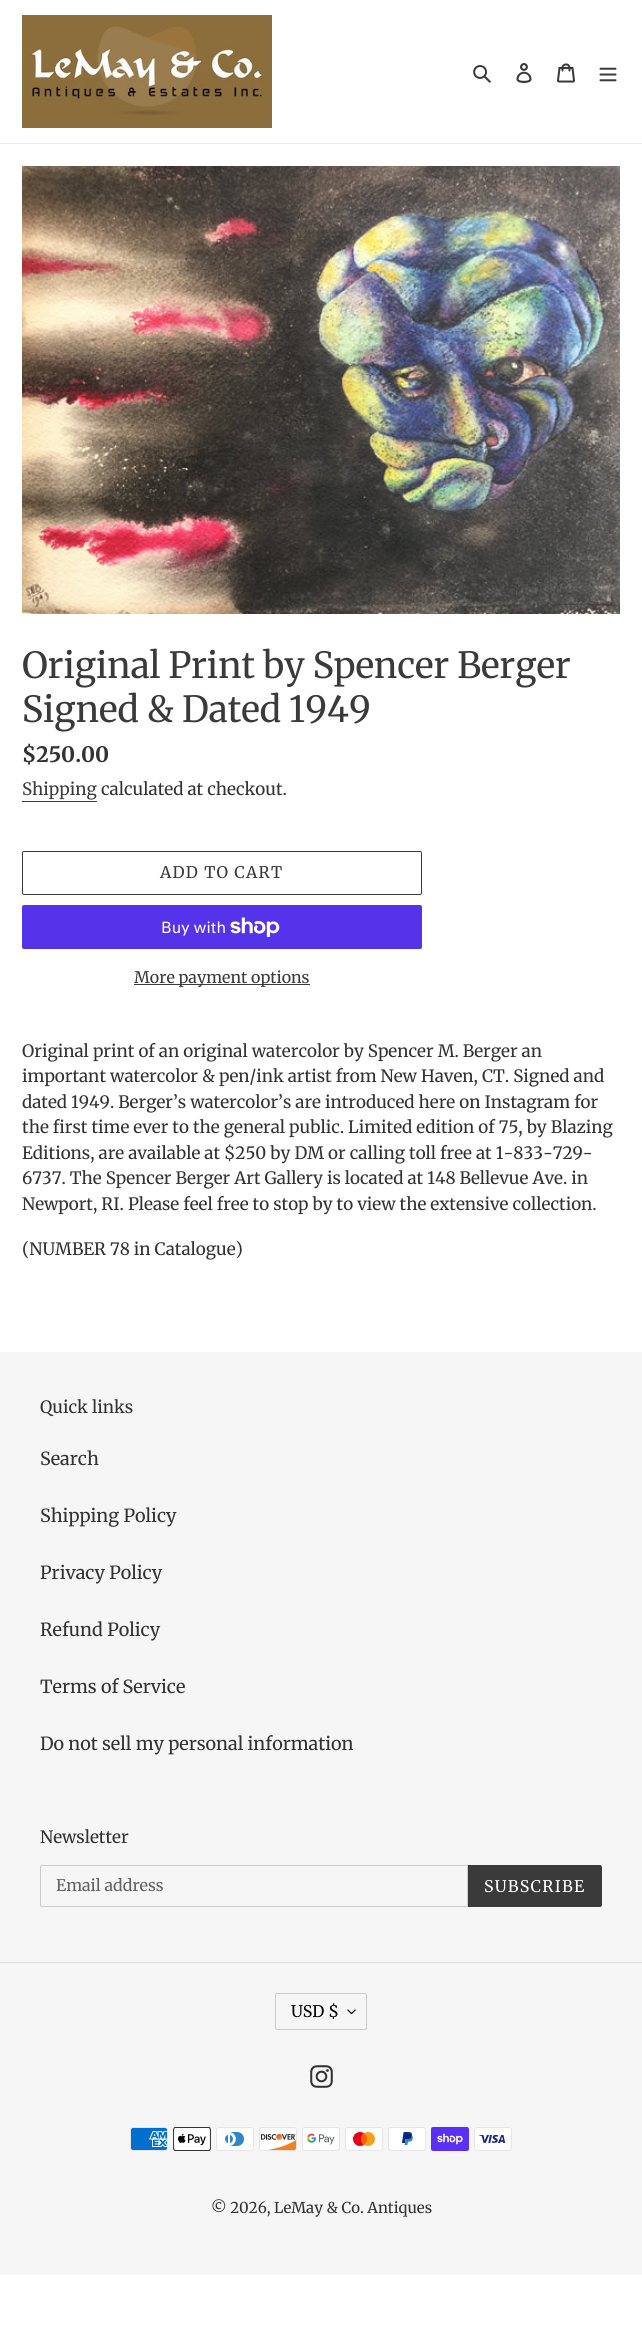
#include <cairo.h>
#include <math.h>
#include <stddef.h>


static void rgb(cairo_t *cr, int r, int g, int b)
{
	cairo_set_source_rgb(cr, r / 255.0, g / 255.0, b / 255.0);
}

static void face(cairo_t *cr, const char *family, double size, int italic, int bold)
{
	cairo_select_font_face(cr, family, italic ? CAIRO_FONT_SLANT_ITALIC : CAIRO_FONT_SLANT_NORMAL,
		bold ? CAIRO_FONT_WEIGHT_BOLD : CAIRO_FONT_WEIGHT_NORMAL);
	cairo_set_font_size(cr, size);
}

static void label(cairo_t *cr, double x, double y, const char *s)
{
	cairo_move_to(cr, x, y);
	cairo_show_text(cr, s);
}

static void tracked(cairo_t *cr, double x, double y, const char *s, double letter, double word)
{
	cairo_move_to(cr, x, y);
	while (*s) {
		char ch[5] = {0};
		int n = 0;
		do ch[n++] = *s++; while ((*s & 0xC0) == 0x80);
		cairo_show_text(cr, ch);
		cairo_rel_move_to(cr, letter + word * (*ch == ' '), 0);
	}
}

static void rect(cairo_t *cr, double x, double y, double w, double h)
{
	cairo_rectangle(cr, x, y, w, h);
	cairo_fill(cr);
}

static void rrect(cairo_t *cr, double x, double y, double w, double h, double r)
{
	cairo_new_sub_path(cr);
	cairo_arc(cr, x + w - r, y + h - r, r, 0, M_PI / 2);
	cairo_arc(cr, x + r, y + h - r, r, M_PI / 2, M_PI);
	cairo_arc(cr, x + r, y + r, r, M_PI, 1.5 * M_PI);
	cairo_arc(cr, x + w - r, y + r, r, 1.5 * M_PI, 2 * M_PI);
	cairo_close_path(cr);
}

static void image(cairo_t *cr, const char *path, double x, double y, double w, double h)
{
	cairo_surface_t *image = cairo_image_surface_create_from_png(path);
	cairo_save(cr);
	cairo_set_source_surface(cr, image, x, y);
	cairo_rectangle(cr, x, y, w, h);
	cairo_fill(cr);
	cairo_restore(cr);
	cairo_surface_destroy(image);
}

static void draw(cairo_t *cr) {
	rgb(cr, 255, 255, 255);
	cairo_paint(cr);
	rgb(cr, 235, 235, 235);
	rect(cr, 0, 143, 642, 1);
	image(cr, "image0.png", 22, 15, 250, 113);
	image(cr, "image1.png", 473, 65, 18, 18);
	image(cr, "image2.png", 516, 63, 16, 20);
	image(cr, "image3.png", 557, 63, 18, 20);
	image(cr, "image4.png", 599, 67, 18, 15);
	image(cr, "image5.png", 22, 166, 598, 448);
	face(cr, "Merriweather", 36, 0, 0);
	rgb(cr, 58, 58, 58);
	label(cr, 22, 678, "Original Print by Spencer Berger");
	label(cr, 22, 722, "Signed & Dated 1949");
	face(cr, "Merriweather", 21.25, 0, 1);
	rgb(cr, 51, 50, 50);
	label(cr, 22, 762, "$250.00");
	face(cr, "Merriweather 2", 17, 0, 0);
	rgb(cr, 58, 58, 58);
	label(cr, 22, 795, "Shipping");
	rect(cr, 22, 801, 75, 1);
	rgb(cr, 51, 50, 50);
	label(cr, 101, 795, "calculated at checkout.");
	rrect(cr, 22.5, 851.5, 399, 43, 1.5);
	rgb(cr, 58, 58, 58);
	cairo_set_line_width(cr, 1);
	cairo_stroke(cr);
	face(cr, "Merriweather 2", 16, 0, 0);
	tracked(cr, 160, 878, "ADD TO CART", 1.25, 0);
	rgb(cr, 84, 51, 235);
	rrect(cr, 22, 905, 400, 44, 2);
	cairo_fill(cr);
	face(cr, "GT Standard", 16, 0, 0);
	rgb(cr, 255, 255, 255);
	label(cr, 161, 933, "Buy with");
	image(cr, "image6.png", 230, 917, 50, 20);
	rgb(cr, 58, 58, 58);
	rect(cr, 134, 984, 176, 1);
	face(cr, "Merriweather 2", 16, 0, 0);
	label(cr, 134, 983, "More payment options");
	face(cr, "Merriweather 2", 17, 0, 0);
	rgb(cr, 51, 50, 50);
	label(cr, 22, 1057, "Original print of an original watercolor by Spencer M. Berger an");
	label(cr, 22, 1082, "important watercolor & pen/ink artist from New Haven, CT. Signed and");
	label(cr, 22, 1108, "dated 1949. Berger’s watercolor’s are introduced here on Instagram for");
	label(cr, 22, 1133, "the first time ever to the general public. Limited edition of 75, by Blazing");
	label(cr, 22, 1159, "Editions, are available at $250 by DM or calling toll free at 1-833-729-");
	label(cr, 22, 1184, "6737. The Spencer Berger Art Gallery is located at 148 Bellevue Ave. in");
	label(cr, 22, 1210, "Newport, RI. Please feel free to stop by to view the extensive collection.");
	label(cr, 22, 1255, "(NUMBER 78 in Catalogue)");
	rgb(cr, 246, 246, 246);
	rect(cr, 0, 1352, 642, 923);
	rgb(cr, 51, 50, 50);
	label(cr, 40, 1413, "Quick links");
	face(cr, "Merriweather 2", 18, 0, 0);
	label(cr, 40, 1465, "Search");
	label(cr, 40, 1522, "Shipping Policy");
	label(cr, 40, 1579, "Privacy Policy");
	label(cr, 40, 1636, "Refund Policy");
	label(cr, 40, 1693, "Terms of Service");
	label(cr, 40, 1750, "Do not sell my personal information");
	face(cr, "Merriweather 2", 17, 0, 0);
	label(cr, 40, 1843, "Newsletter");
	cairo_new_path(cr);
	cairo_move_to(cr, 42, 1865.5);
	cairo_line_to(cr, 467.5, 1865.5);
	cairo_line_to(cr, 467.5, 1906.5);
	cairo_line_to(cr, 42, 1906.5);
	cairo_curve_to(cr, 41, 1906.5, 40.5, 1906, 40.5, 1905);
	cairo_line_to(cr, 40.5, 1867);
	cairo_curve_to(cr, 40.5, 1866, 41, 1865.5, 42, 1865.5);
	cairo_close_path(cr);
	rgb(cr, 204, 204, 204);
	cairo_stroke(cr);
	face(cr, "Merriweather 2", 16, 0, 0);
	rgb(cr, 98, 98, 98);
	label(cr, 56, 1891, "Email address");
	rgb(cr, 58, 58, 58);
	cairo_new_path(cr);
	cairo_move_to(cr, 468, 1865);
	cairo_line_to(cr, 600, 1865);
	cairo_curve_to(cr, 601, 1865, 602, 1866, 602, 1867);
	cairo_line_to(cr, 602, 1905);
	cairo_curve_to(cr, 602, 1906, 601, 1907, 600, 1907);
	cairo_line_to(cr, 468, 1907);
	cairo_close_path(cr);
	cairo_fill(cr);
	rgb(cr, 255, 255, 255);
	tracked(cr, 484, 1892, "SUBSCRIBE", 1.25, 0);
	rgb(cr, 221, 221, 221);
	rect(cr, 0, 1962, 642, 1);
	image(cr, "image7.png", 347, 2009, 9, 6);
	rrect(cr, 275.5, 1993.5, 91, 36, 1.5);
	rgb(cr, 204, 204, 204);
	cairo_stroke(cr);
	rgb(cr, 0, 0, 0);
	label(cr, 291, 2017, "USD $");
	image(cr, "image8.png", 310, 2065, 23, 23);
	image(cr, "image9.png", 130, 2127, 38, 24);
	image(cr, "image10.png", 173, 2127, 38, 24);
	image(cr, "image11.png", 216, 2127, 38, 24);
	image(cr, "image12.png", 259, 2127, 38, 24);
	image(cr, "image13.png", 302, 2127, 38, 24);
	image(cr, "image14.png", 345, 2127, 38, 24);
	image(cr, "image15.png", 388, 2127, 38, 24);
	image(cr, "image16.png", 431, 2127, 38, 24);
	image(cr, "image17.png", 474, 2127, 38, 24);
	face(cr, "Merriweather 2", 15, 0, 0);
	rgb(cr, 51, 50, 50);
	label(cr, 211, 2213, "© 2026, LeMay & Co. Antiques");
}

int main(void) {
	cairo_surface_t *surface = cairo_image_surface_create(CAIRO_FORMAT_RGB24, 642, 2329);
	cairo_t *cr = cairo_create(surface);
	cairo_font_options_t *options = cairo_font_options_create();
	cairo_font_options_set_hint_metrics(options, CAIRO_HINT_METRICS_OFF);
	cairo_font_options_set_hint_style(options, CAIRO_HINT_STYLE_NONE);
	cairo_set_font_options(cr, options);
	cairo_set_miter_limit(cr, 4);
	draw(cr);
	cairo_surface_write_to_png(surface, "render.png");
	cairo_font_options_destroy(options);
	cairo_destroy(cr);
	cairo_surface_destroy(surface);
	return 0;
}
